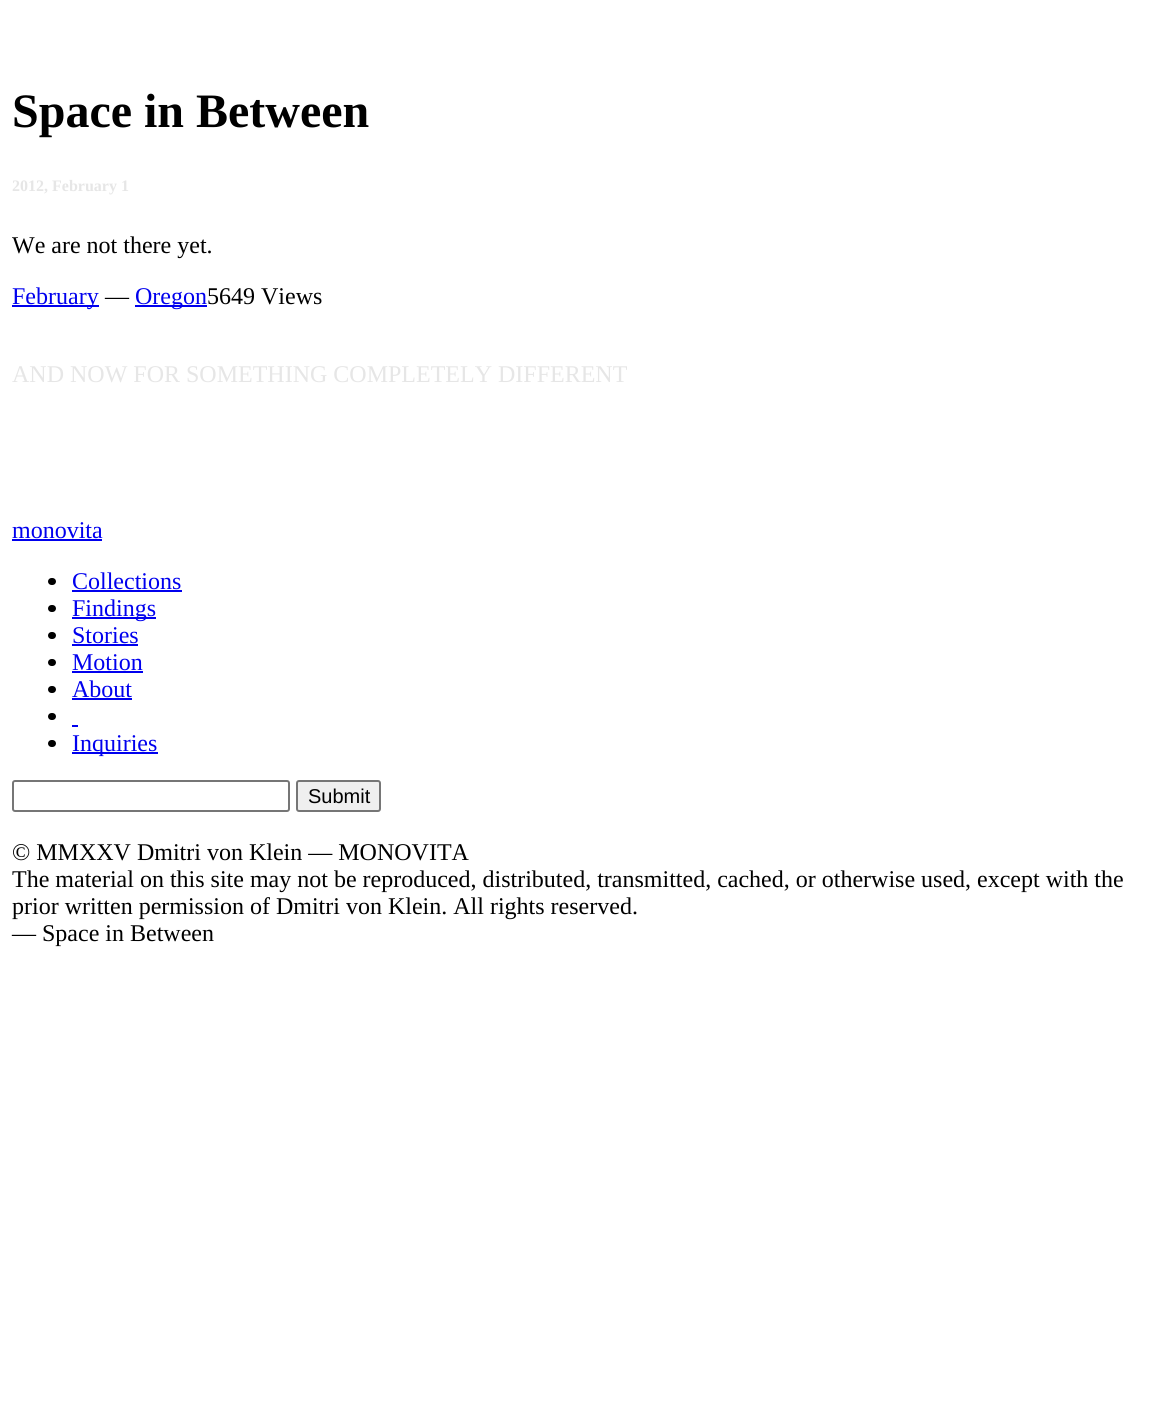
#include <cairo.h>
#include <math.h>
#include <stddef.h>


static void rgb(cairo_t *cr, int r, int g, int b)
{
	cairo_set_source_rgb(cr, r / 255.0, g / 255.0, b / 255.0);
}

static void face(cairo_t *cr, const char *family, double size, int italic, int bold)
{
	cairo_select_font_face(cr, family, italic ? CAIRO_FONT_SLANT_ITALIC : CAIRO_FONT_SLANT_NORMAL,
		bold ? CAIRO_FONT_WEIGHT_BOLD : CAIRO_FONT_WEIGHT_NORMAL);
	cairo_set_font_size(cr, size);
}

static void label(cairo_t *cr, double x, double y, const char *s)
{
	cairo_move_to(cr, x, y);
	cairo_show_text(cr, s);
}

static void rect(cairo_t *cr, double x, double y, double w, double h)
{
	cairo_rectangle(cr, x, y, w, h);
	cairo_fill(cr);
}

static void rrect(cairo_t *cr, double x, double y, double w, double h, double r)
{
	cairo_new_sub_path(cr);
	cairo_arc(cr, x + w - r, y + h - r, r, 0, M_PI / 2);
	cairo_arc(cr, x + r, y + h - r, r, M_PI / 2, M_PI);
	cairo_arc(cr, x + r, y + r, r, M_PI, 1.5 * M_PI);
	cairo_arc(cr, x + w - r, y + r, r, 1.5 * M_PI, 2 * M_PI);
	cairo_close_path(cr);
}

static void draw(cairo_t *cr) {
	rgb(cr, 255, 255, 255);
	cairo_paint(cr);
	face(cr, "Liberation Serif", 48, 0, 1);
	rgb(cr, 0, 0, 0);
	label(cr, 12, 127, "Space in Between");
	face(cr, "Liberation Serif", 16, 0, 1);
	rgb(cr, 230, 230, 230);
	label(cr, 12, 191, "2012, February 1");
	face(cr, "Liberation Serif", 24, 0, 0);
	rgb(cr, 0, 0, 0);
	label(cr, 12, 253, "We are not there yet.");
	rgb(cr, 0, 0, 238);
	rect(cr, 12, 305, 87, 2);
	label(cr, 12, 304, "February");
	rgb(cr, 0, 0, 0);
	label(cr, 105, 304, "—");
	rgb(cr, 0, 0, 238);
	rect(cr, 135, 305, 72, 2);
	label(cr, 135, 304, "Oregon");
	rgb(cr, 0, 0, 0);
	label(cr, 207, 304, "5649 Views");
	rgb(cr, 230, 230, 230);
	label(cr, 12, 382, "AND NOW FOR SOMETHING COMPLETELY DIFFERENT");
	rgb(cr, 0, 0, 238);
	label(cr, 12, 538, "monovita");
	rect(cr, 12, 539, 90, 2);
	rgb(cr, 0, 0, 0);
	rrect(cr, 48, 578, 8, 7, 3.5);
	cairo_fill(cr);
	rgb(cr, 0, 0, 238);
	label(cr, 72, 589, "Collections");
	rect(cr, 72, 590, 110, 2);
	rgb(cr, 0, 0, 0);
	rrect(cr, 48, 605, 8, 7, 3.5);
	cairo_fill(cr);
	rgb(cr, 0, 0, 238);
	rect(cr, 72, 617, 84, 2);
	label(cr, 72, 616, "Findings");
	rgb(cr, 0, 0, 0);
	rrect(cr, 48, 632, 8, 7, 3.5);
	cairo_fill(cr);
	rgb(cr, 0, 0, 238);
	label(cr, 72, 643, "Stories");
	rect(cr, 72, 644, 66, 2);
	rgb(cr, 0, 0, 0);
	rrect(cr, 48, 659, 8, 7, 3.5);
	cairo_fill(cr);
	rgb(cr, 0, 0, 238);
	label(cr, 72, 670, "Motion");
	rect(cr, 72, 671, 71, 2);
	rgb(cr, 0, 0, 0);
	rrect(cr, 48, 686, 8, 7, 3.5);
	cairo_fill(cr);
	rgb(cr, 0, 0, 238);
	label(cr, 72, 697, "About");
	rect(cr, 72, 698, 60, 2);
	rgb(cr, 0, 0, 0);
	rrect(cr, 48, 713, 8, 7, 3.5);
	cairo_fill(cr);
	rgb(cr, 0, 0, 238);
	rect(cr, 72, 725, 6, 2);
	rgb(cr, 0, 0, 0);
	rrect(cr, 48, 740, 8, 7, 3.5);
	cairo_fill(cr);
	rgb(cr, 0, 0, 238);
	rect(cr, 72, 752, 86, 2);
	label(cr, 72, 751, "Inquiries");
	rrect(cr, 13, 781, 276, 30, 2);
	rgb(cr, 118, 118, 118);
	cairo_stroke(cr);
	rgb(cr, 239, 239, 239);
	rrect(cr, 297, 781, 83, 30, 2);
	cairo_fill_preserve(cr);
	rgb(cr, 118, 118, 118);
	cairo_stroke(cr);
	face(cr, "Liberation Sans", 20, 0, 0);
	rgb(cr, 0, 0, 0);
	label(cr, 308, 803, "Submit");
	face(cr, "Liberation Serif", 24, 0, 0);
	label(cr, 12, 860, "© MMXXV Dmitri von Klein — MONOVITA");
	label(cr, 12, 887, "The material on this site may not be reproduced, distributed, transmitted, cached, or otherwise used, except with the");
	label(cr, 12, 914, "prior written permission of Dmitri von Klein. All rights reserved.");
	label(cr, 12, 941, "— Space in Between");
}

int main(void) {
	cairo_surface_t *surface = cairo_image_surface_create(CAIRO_FORMAT_RGB24, 1169, 1417);
	cairo_t *cr = cairo_create(surface);
	cairo_font_options_t *options = cairo_font_options_create();
	cairo_font_options_set_hint_metrics(options, CAIRO_HINT_METRICS_OFF);
	cairo_font_options_set_hint_style(options, CAIRO_HINT_STYLE_NONE);
	cairo_set_font_options(cr, options);
	cairo_set_miter_limit(cr, 4);
	draw(cr);
	cairo_surface_write_to_png(surface, "render.png");
	cairo_font_options_destroy(options);
	cairo_destroy(cr);
	cairo_surface_destroy(surface);
	return 0;
}
